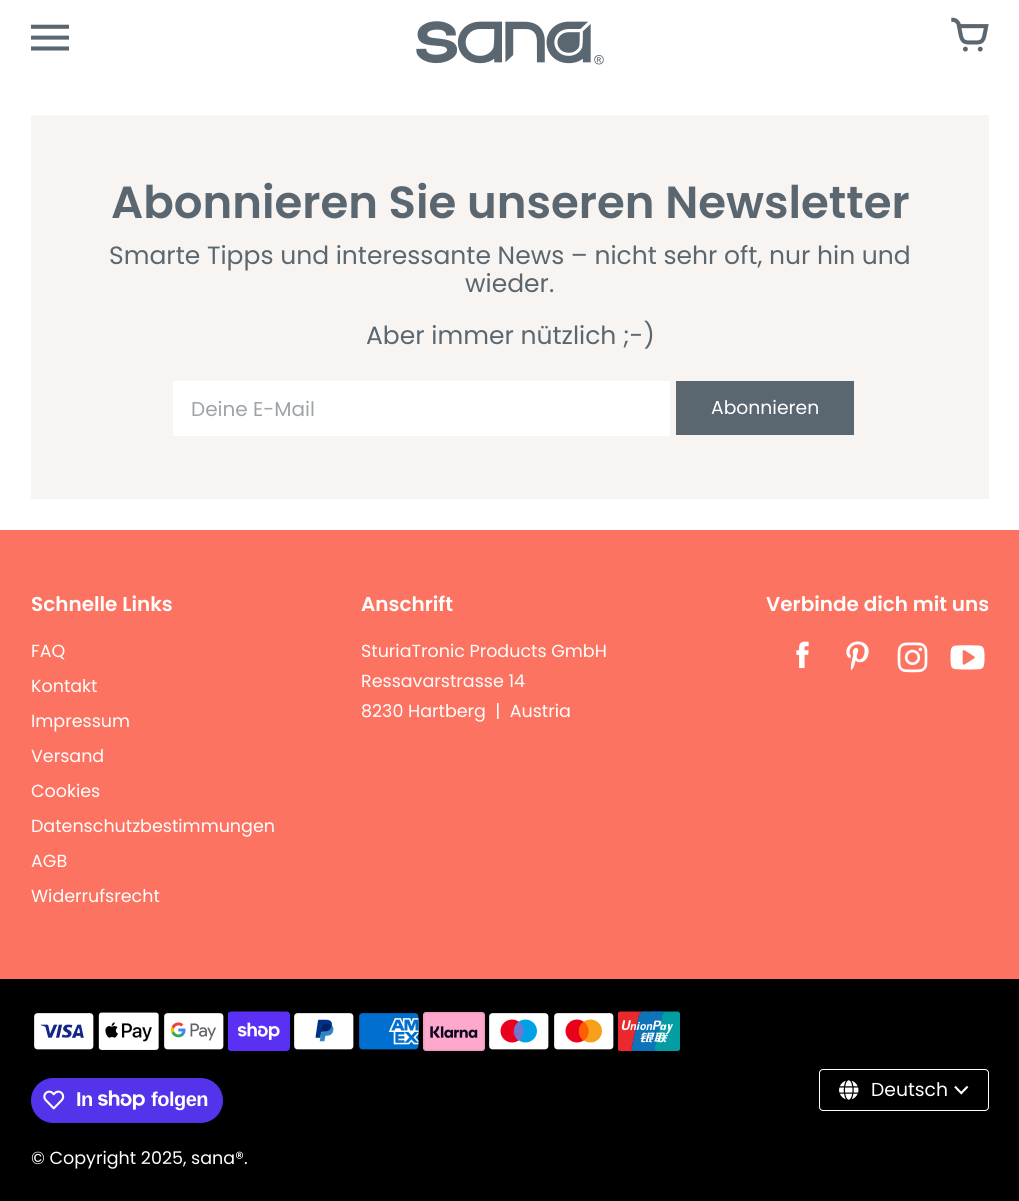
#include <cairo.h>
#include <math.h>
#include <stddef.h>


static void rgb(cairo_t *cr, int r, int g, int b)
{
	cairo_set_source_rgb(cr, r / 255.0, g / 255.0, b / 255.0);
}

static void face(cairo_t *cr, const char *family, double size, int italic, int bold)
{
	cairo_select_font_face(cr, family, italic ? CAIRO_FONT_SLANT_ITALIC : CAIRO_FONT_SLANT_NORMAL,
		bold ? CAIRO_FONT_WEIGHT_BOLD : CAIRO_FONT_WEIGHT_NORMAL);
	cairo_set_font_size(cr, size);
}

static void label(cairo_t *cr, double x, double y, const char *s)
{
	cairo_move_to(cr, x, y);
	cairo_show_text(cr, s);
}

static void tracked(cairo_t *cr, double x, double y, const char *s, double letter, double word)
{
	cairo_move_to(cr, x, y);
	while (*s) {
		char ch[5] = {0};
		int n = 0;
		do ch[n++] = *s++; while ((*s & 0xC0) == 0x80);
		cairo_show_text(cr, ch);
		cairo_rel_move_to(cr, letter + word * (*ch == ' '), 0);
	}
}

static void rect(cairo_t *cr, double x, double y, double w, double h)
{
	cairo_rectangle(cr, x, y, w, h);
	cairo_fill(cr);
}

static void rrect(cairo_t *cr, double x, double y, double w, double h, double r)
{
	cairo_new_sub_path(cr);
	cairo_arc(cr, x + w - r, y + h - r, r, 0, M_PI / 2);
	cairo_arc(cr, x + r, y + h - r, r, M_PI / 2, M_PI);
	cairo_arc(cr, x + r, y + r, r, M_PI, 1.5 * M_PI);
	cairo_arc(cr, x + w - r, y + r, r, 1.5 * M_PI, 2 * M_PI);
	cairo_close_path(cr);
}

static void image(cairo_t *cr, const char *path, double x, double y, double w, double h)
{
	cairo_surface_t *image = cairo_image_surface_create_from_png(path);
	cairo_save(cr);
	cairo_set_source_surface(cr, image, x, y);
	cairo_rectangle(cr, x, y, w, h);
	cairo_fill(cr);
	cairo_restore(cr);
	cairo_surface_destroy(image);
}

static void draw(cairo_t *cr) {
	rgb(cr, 255, 255, 255);
	cairo_paint(cr);
	face(cr, "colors", 38, 0, 0);
	rgb(cr, 91, 103, 112);
	label(cr, 31, 59, "1");
	image(cr, "image0.png", 416, 21, 188, 44);
	label(cr, 951, 56, "3");
	rgb(cr, 247, 244, 241);
	rect(cr, 31, 115, 958, 384);
	face(cr, "Poppins SemiBold", 45, 0, 0);
	rgb(cr, 91, 103, 112);
	label(cr, 111, 218, "Abonnieren Sie unseren Newsletter");
	face(cr, "Poppins", 25, 0, 0);
	label(cr, 109, 264, "Smarte Tipps und interessante News – nicht sehr oft, nur hin und");
	label(cr, 465, 292, "wieder.");
	label(cr, 366, 344, "Aber immer nützlich ;-)");
	rgb(cr, 255, 255, 255);
	rect(cr, 173, 381, 497, 55);
	face(cr, "Poppins", 20, 0, 0);
	rgb(cr, 157, 164, 169);
	label(cr, 191, 416, "Deine E-Mail");
	rgb(cr, 91, 103, 112);
	rect(cr, 676, 381, 178, 54);
	face(cr, "Poppins", 18.75, 0, 0);
	rgb(cr, 255, 255, 255);
	label(cr, 711, 414, "Abonnieren");
	rgb(cr, 253, 115, 97);
	rect(cr, 0, 530, 1019, 449);
	face(cr, "Poppins SemiBold", 20, 0, 0);
	rgb(cr, 255, 255, 255);
	label(cr, 31, 611, "Schnelle Links");
	face(cr, "Poppins", 17.5, 0, 0);
	label(cr, 31, 657, "FAQ");
	label(cr, 31, 692, "Kontakt");
	label(cr, 31, 727, "Impressum");
	label(cr, 31, 762, "Versand");
	label(cr, 31, 797, "Cookies");
	label(cr, 31, 832, "Datenschutzbestimmungen");
	label(cr, 31, 867, "AGB");
	label(cr, 31, 902, "Widerrufsrecht");
	face(cr, "Poppins SemiBold", 20, 0, 0);
	label(cr, 361, 611, "Anschrift");
	face(cr, "Poppins", 17.5, 0, 0);
	label(cr, 361, 657, "SturiaTronic Products GmbH");
	label(cr, 361, 687, "Ressavarstrasse 14");
	label(cr, 361, 717, "8230 Hartberg  |  Austria");
	face(cr, "Poppins SemiBold", 20, 0, 0);
	label(cr, 766, 611, "Verbinde dich mit uns");
	image(cr, "image1.png", 796, 641, 13, 28);
	image(cr, "image2.png", 846, 641, 23, 30);
	image(cr, "image3.png", 897, 642, 31, 31);
	image(cr, "image4.png", 950, 645, 35, 25);
	rgb(cr, 0, 0, 0);
	rect(cr, 0, 979, 1019, 222);
	rrect(cr, 819.5, 1069.5, 169, 41, 3.5);
	rgb(cr, 255, 255, 255);
	cairo_set_line_width(cr, 1);
	cairo_stroke(cr);
	image(cr, "image5.png", 839, 1080, 20, 20);
	face(cr, "Poppins", 18.75, 0, 0);
	label(cr, 871, 1096, "Deutsch");
	image(cr, "image6.png", 954, 1085, 15, 10);
	image(cr, "image7.png", 34, 1013, 60, 37);
	image(cr, "image8.png", 98, 1012, 61, 38);
	image(cr, "image9.png", 164, 1013, 60, 37);
	image(cr, "image10.png", 228, 1011, 62, 40);
	image(cr, "image11.png", 294, 1013, 60, 37);
	image(cr, "image12.png", 359, 1013, 60, 37);
	image(cr, "image13.png", 423, 1012, 62, 39);
	image(cr, "image14.png", 489, 1013, 60, 37);
	image(cr, "image15.png", 554, 1013, 60, 37);
	image(cr, "image16.png", 618, 1011, 62, 40);
	rgb(cr, 84, 51, 235);
	rrect(cr, 31, 1078, 192, 45, 22.5);
	cairo_fill(cr);
	image(cr, "image17.png", 43, 1090, 22, 20);
	face(cr, "Liberation Sans", 20, 0, 1);
	rgb(cr, 255, 255, 255);
	tracked(cr, 76, 1106, "In", -0.5, 0);
	image(cr, "image18.png", 98, 1090, 47, 20);
	tracked(cr, 151, 1106, "folgen", -0.5, 0);
	face(cr, "Poppins", 17.5, 0, 0);
	label(cr, 31, 1164, "© Copyright 2025, sana®.");
}

int main(void) {
	cairo_surface_t *surface = cairo_image_surface_create(CAIRO_FORMAT_RGB24, 1019, 1201);
	cairo_t *cr = cairo_create(surface);
	cairo_font_options_t *options = cairo_font_options_create();
	cairo_font_options_set_hint_metrics(options, CAIRO_HINT_METRICS_OFF);
	cairo_font_options_set_hint_style(options, CAIRO_HINT_STYLE_NONE);
	cairo_set_font_options(cr, options);
	cairo_set_miter_limit(cr, 4);
	draw(cr);
	cairo_surface_write_to_png(surface, "render.png");
	cairo_font_options_destroy(options);
	cairo_destroy(cr);
	cairo_surface_destroy(surface);
	return 0;
}
